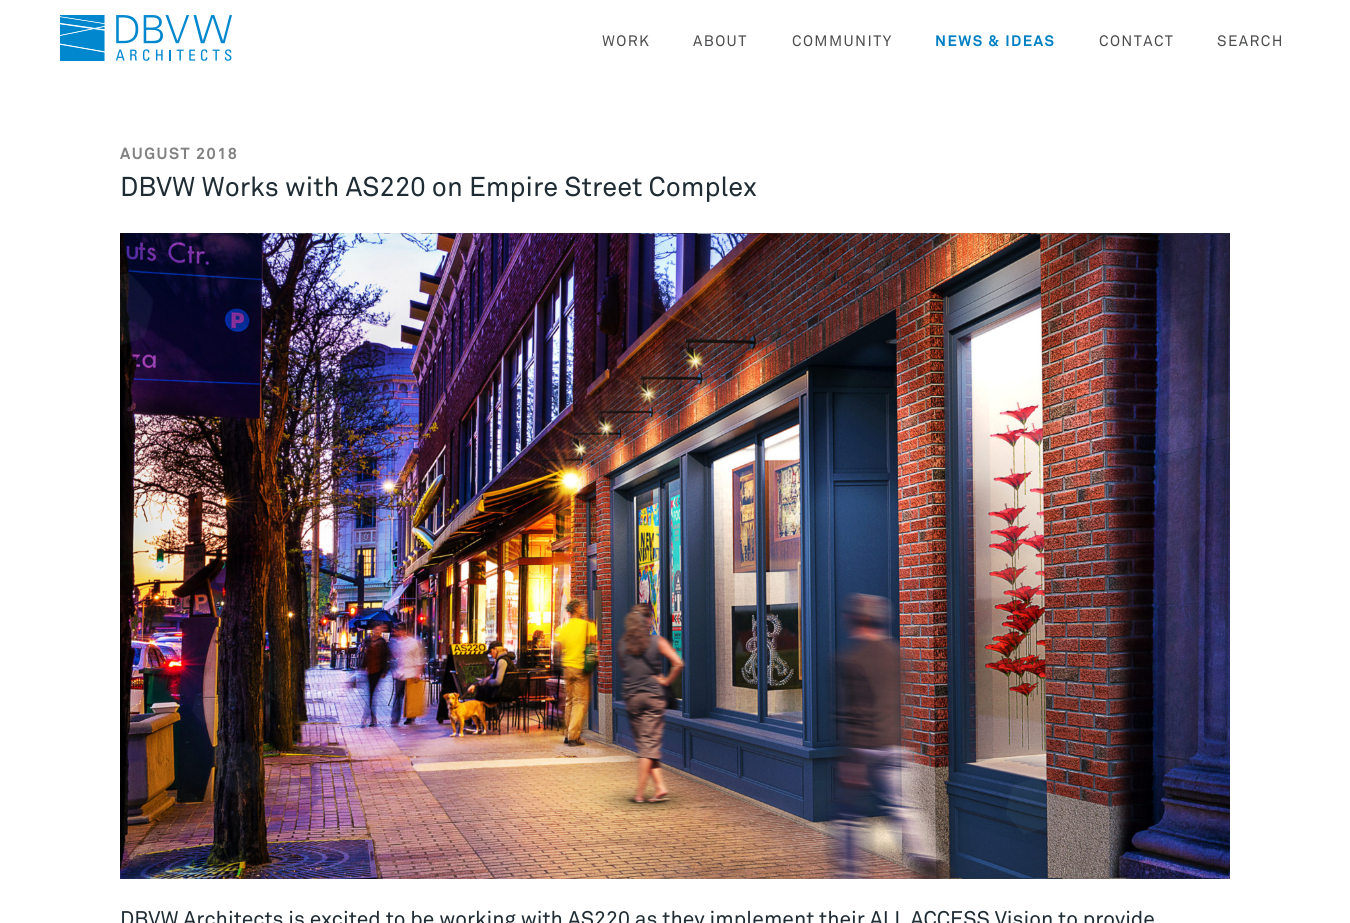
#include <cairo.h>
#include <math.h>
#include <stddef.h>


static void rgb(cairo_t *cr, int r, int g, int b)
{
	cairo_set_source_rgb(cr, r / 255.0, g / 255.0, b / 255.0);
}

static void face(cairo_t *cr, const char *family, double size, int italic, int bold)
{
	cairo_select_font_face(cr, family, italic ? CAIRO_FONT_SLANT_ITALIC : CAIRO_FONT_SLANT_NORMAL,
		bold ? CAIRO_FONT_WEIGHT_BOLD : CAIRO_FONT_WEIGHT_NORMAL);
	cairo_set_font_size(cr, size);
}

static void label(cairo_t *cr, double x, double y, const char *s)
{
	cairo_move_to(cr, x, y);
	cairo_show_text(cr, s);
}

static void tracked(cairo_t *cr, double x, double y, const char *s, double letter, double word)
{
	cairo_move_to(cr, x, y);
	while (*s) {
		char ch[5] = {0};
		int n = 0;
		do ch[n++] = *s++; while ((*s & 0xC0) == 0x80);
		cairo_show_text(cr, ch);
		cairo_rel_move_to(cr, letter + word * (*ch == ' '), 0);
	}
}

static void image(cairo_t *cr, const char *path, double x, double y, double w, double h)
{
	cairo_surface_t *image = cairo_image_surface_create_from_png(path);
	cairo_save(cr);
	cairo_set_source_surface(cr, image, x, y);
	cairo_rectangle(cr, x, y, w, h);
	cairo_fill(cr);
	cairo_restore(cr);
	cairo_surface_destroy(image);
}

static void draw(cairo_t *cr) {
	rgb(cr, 255, 255, 255);
	cairo_paint(cr);
	image(cr, "image0.png", 60, 15, 172, 46);
	face(cr, "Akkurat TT", 15, 0, 0);
	rgb(cr, 75, 76, 78);
	tracked(cr, 602, 46, "WORK", 1.4, 0);
	tracked(cr, 693, 46, "ABOUT", 1.4, 0);
	tracked(cr, 792, 46, "COMMUNITY", 1.4, 0);
	face(cr, "Akkurat TT", 15, 0, 1);
	rgb(cr, 0, 128, 195);
	tracked(cr, 935, 46, "NEWS & IDEAS", 1.4, 0);
	face(cr, "Akkurat TT", 15, 0, 0);
	rgb(cr, 75, 76, 78);
	tracked(cr, 1099, 46, "CONTACT", 1.4, 0);
	tracked(cr, 1217, 46, "SEARCH", 1.4, 0);
	face(cr, "Akkurat TT", 16, 0, 1);
	rgb(cr, 130, 130, 130);
	tracked(cr, 120, 159, "AUGUST 2018", 1.5, 0);
	face(cr, "Akkurat TT", 27, 0, 0);
	rgb(cr, 31, 44, 51);
	label(cr, 120, 196, "DBVW Works with AS220 on Empire Street Complex");
	image(cr, "image1.png", 120, 233, 1110, 646);
	face(cr, "Akkurat TT", 21, 0, 0);
	label(cr, 120, 926, "DBVW Architects is excited to be working with AS220 as they implement their ALL ACCESS Vision to provide");
}

int main(void) {
	cairo_surface_t *surface = cairo_image_surface_create(CAIRO_FORMAT_RGB24, 1350, 923);
	cairo_t *cr = cairo_create(surface);
	cairo_font_options_t *options = cairo_font_options_create();
	cairo_font_options_set_hint_metrics(options, CAIRO_HINT_METRICS_OFF);
	cairo_font_options_set_hint_style(options, CAIRO_HINT_STYLE_NONE);
	cairo_set_font_options(cr, options);
	cairo_set_miter_limit(cr, 4);
	draw(cr);
	cairo_surface_write_to_png(surface, "render.png");
	cairo_font_options_destroy(options);
	cairo_destroy(cr);
	cairo_surface_destroy(surface);
	return 0;
}
